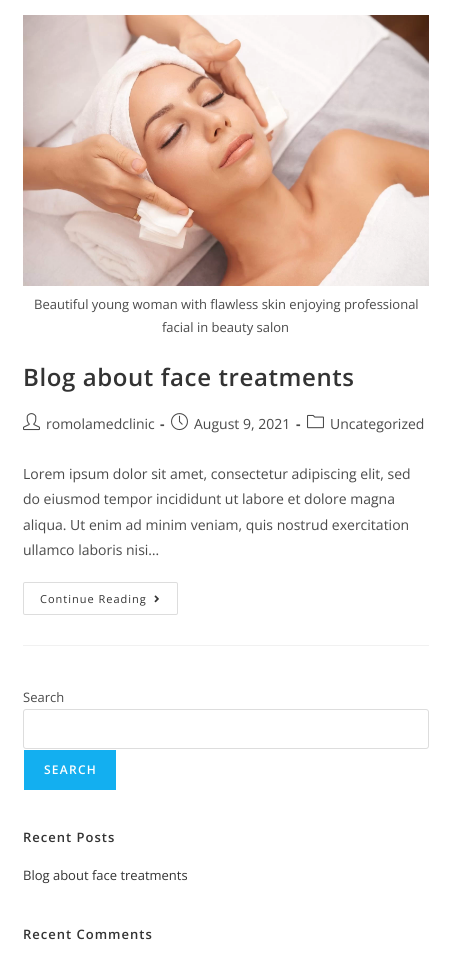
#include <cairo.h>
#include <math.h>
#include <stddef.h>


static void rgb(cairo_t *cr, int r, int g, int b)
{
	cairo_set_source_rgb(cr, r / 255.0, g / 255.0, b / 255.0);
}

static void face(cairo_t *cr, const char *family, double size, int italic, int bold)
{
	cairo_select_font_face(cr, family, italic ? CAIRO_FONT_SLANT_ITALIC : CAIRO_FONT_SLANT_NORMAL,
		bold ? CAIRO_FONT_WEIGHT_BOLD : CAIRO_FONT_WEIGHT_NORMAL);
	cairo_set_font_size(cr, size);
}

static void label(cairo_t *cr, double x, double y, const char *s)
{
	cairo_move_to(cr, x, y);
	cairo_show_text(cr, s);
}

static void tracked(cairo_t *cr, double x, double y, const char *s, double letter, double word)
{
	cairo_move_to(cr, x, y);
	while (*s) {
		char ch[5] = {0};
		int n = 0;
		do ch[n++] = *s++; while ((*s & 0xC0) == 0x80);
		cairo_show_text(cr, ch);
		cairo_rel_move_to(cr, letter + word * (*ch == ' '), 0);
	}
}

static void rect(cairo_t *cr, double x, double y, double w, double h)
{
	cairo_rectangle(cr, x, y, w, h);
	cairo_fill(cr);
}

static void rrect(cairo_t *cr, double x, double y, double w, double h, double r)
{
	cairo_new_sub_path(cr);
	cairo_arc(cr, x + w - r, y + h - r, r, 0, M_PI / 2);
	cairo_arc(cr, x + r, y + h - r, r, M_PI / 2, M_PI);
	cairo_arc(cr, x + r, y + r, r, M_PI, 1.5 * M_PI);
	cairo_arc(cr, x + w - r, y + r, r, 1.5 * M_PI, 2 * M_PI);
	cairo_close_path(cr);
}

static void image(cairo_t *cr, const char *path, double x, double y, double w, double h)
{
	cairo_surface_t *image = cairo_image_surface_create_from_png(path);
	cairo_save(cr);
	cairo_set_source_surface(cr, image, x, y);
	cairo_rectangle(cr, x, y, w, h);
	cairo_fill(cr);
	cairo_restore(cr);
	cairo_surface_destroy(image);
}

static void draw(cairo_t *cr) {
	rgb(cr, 255, 255, 255);
	cairo_paint(cr);
	rgb(cr, 241, 241, 241);
	rect(cr, 23, 645, 406, 1);
	image(cr, "image0.png", 23, 15, 406, 271);
	face(cr, "Open Sans", 13, 0, 0);
	rgb(cr, 74, 74, 74);
	label(cr, 34, 309, "Beautiful young woman with flawless skin enjoying professional");
	label(cr, 162, 332, "facial in beauty salon");
	face(cr, "Open Sans SemiBold", 24, 0, 0);
	rgb(cr, 51, 51, 51);
	tracked(cr, 23, 386, "Blog about face treatments", 0.6, 0);
	image(cr, "image1.png", 23, 413, 17, 18);
	face(cr, "Open Sans", 14, 0, 0);
	rgb(cr, 74, 74, 74);
	label(cr, 46, 429, "romolamedclinic");
	face(cr, "Open Sans", 14, 0, 1);
	label(cr, 160, 429, "-");
	image(cr, "image2.png", 171, 413, 17, 18);
	face(cr, "Open Sans", 14, 0, 0);
	label(cr, 194, 429, "August 9, 2021");
	face(cr, "Open Sans", 14, 0, 1);
	label(cr, 296, 429, "-");
	image(cr, "image3.png", 307, 414, 17, 15);
	face(cr, "Open Sans", 14, 0, 0);
	label(cr, 330, 429, "Uncategorized");
	label(cr, 23, 479, "Lorem ipsum dolor sit amet, consectetur adipiscing elit, sed");
	label(cr, 23, 504, "do eiusmod tempor incididunt ut labore et dolore magna");
	label(cr, 23, 530, "aliqua. Ut enim ad minim veniam, quis nostrud exercitation");
	label(cr, 23, 555, "ullamco laboris nisi…");
	rrect(cr, 23.5, 582.5, 154, 32, 1.5);
	rgb(cr, 221, 221, 221);
	cairo_set_line_width(cr, 1);
	cairo_stroke(cr);
	face(cr, "Open Sans", 11, 0, 0);
	rgb(cr, 51, 51, 51);
	tracked(cr, 40, 603, "Continue Reading", 1, 0);
	image(cr, "image4.png", 154, 595, 5, 8);
	face(cr, "Open Sans", 13, 0, 0);
	rgb(cr, 74, 74, 74);
	label(cr, 23, 702, "Search");
	rrect(cr, 23.5, 709.5, 405, 39, 2.5);
	rgb(cr, 221, 221, 221);
	cairo_stroke(cr);
	rgb(cr, 19, 175, 240);
	rect(cr, 24, 750, 92, 40);
	face(cr, "Open Sans SemiBold", 12, 0, 0);
	rgb(cr, 255, 255, 255);
	tracked(cr, 44, 774, "SEARCH", 1.25, 0);
	face(cr, "Open Sans SemiBold", 13, 0, 0);
	rgb(cr, 51, 51, 51);
	tracked(cr, 23, 842, "Recent Posts", 1, 0);
	face(cr, "Open Sans", 13, 0, 0);
	label(cr, 23, 880, "Blog about face treatments");
	face(cr, "Open Sans SemiBold", 13, 0, 0);
	tracked(cr, 23, 939, "Recent Comments", 1, 0);
}

int main(void) {
	cairo_surface_t *surface = cairo_image_surface_create(CAIRO_FORMAT_RGB24, 452, 955);
	cairo_t *cr = cairo_create(surface);
	cairo_font_options_t *options = cairo_font_options_create();
	cairo_font_options_set_hint_metrics(options, CAIRO_HINT_METRICS_OFF);
	cairo_font_options_set_hint_style(options, CAIRO_HINT_STYLE_NONE);
	cairo_set_font_options(cr, options);
	cairo_set_miter_limit(cr, 4);
	draw(cr);
	cairo_surface_write_to_png(surface, "render.png");
	cairo_font_options_destroy(options);
	cairo_destroy(cr);
	cairo_surface_destroy(surface);
	return 0;
}
